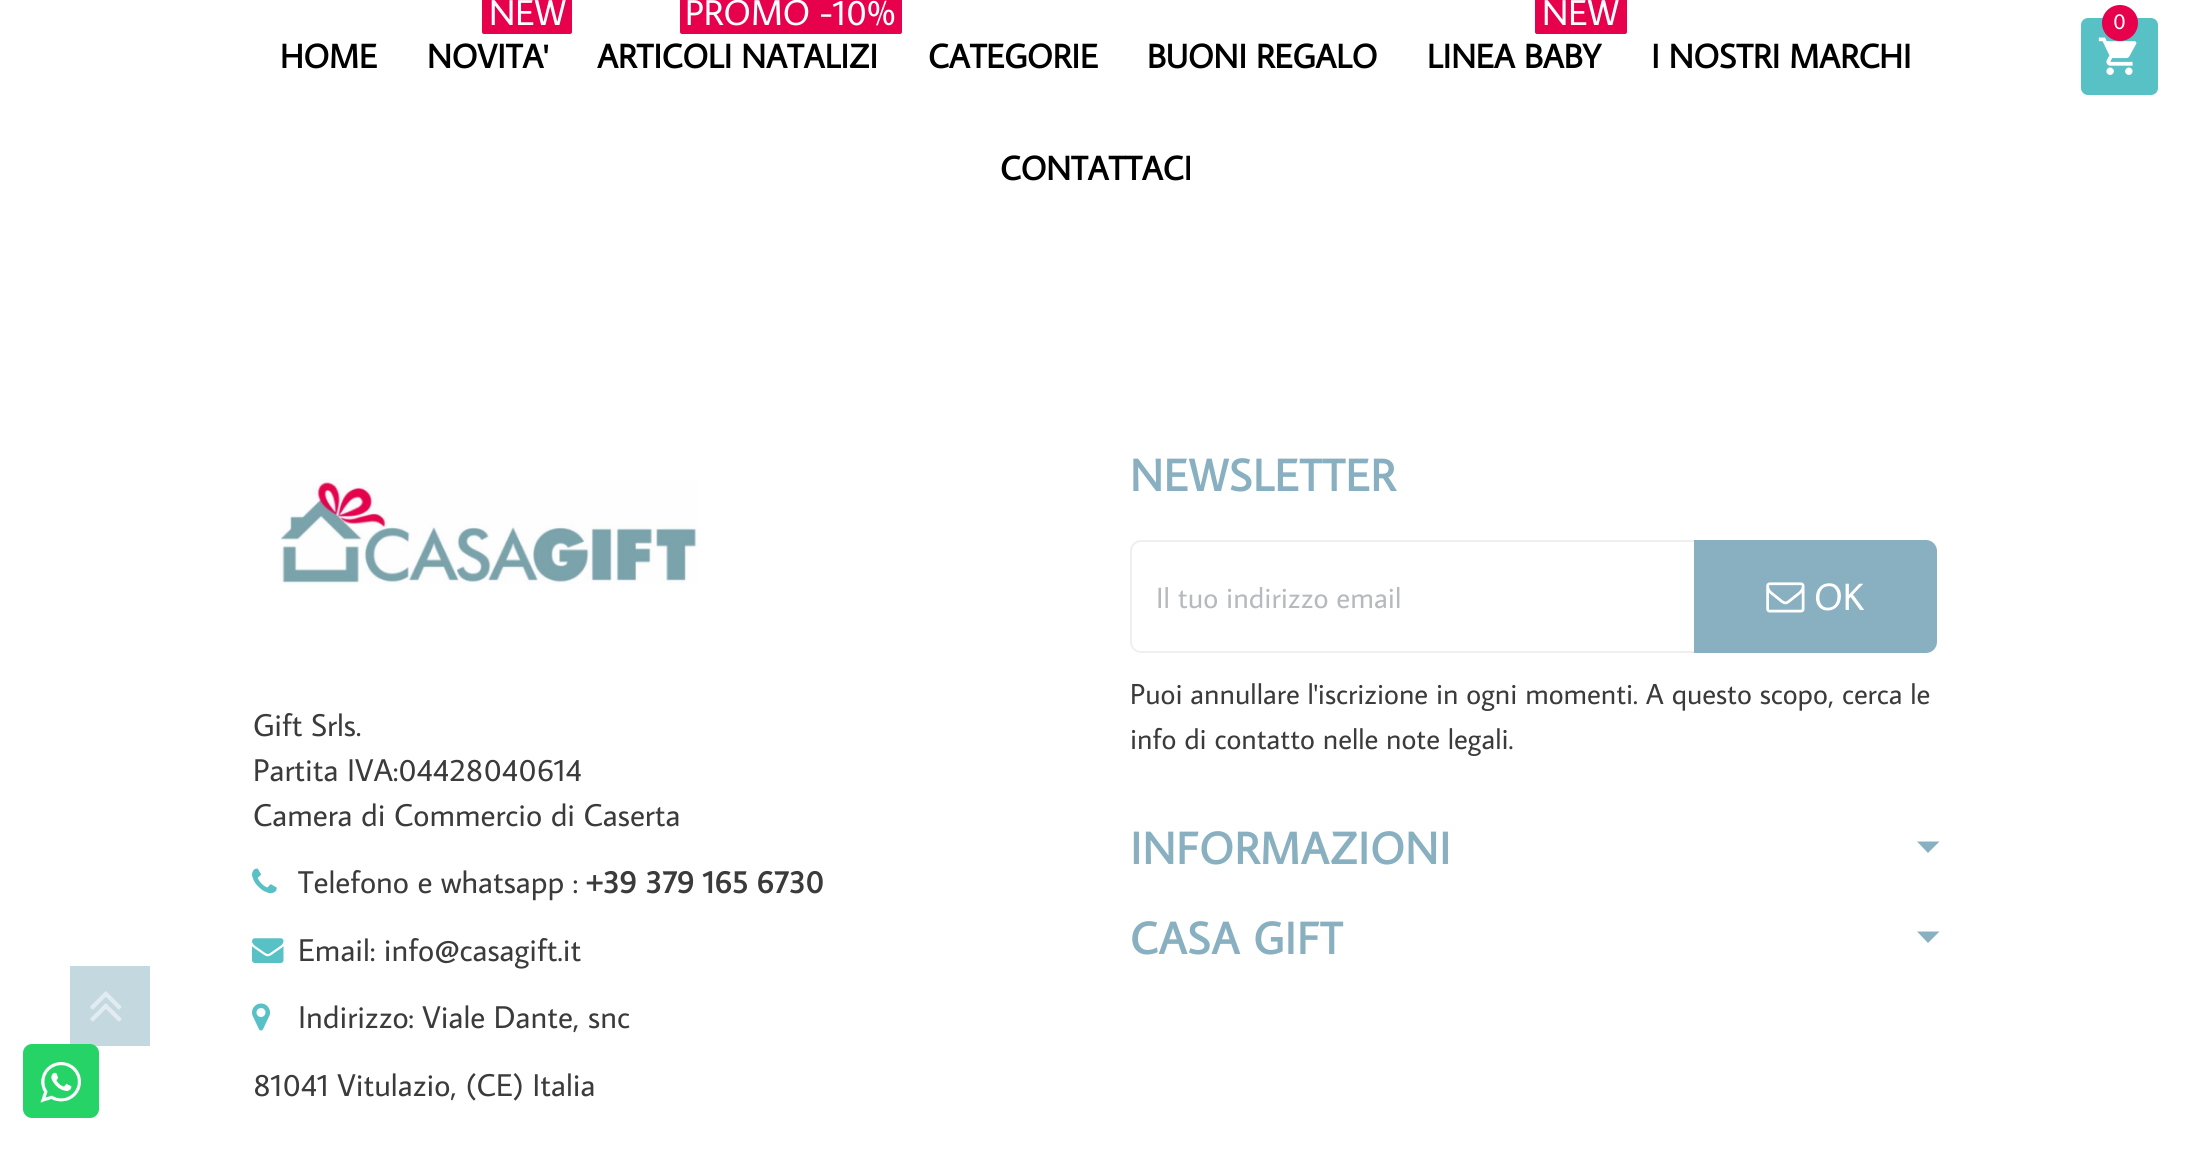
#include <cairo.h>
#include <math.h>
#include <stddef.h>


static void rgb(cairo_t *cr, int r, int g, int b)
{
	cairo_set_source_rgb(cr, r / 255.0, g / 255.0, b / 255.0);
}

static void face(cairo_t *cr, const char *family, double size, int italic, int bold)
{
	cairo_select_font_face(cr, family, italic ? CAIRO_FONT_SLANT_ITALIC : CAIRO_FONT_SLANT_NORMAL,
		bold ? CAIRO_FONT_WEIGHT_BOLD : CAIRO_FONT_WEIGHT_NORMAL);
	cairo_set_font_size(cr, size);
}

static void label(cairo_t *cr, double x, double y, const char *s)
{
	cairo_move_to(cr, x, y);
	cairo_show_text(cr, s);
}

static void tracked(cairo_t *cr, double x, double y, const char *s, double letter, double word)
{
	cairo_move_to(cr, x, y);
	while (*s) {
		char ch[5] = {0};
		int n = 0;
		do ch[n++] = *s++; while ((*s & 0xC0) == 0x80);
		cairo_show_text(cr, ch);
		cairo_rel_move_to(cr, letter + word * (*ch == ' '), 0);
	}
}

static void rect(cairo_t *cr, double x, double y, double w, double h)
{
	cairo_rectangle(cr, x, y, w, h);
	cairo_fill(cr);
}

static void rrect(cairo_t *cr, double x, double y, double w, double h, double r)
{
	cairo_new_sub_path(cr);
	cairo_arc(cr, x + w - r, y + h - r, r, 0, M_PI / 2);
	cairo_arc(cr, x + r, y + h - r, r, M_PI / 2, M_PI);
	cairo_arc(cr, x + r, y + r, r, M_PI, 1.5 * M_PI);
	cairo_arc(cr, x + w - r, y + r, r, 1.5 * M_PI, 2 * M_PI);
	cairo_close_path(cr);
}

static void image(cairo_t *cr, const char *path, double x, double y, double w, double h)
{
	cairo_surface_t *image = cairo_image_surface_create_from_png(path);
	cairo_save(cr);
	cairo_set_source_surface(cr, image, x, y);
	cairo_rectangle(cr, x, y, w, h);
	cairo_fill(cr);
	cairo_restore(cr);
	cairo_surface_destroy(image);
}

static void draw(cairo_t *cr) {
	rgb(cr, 255, 255, 255);
	cairo_paint(cr);
	rgb(cr, 196, 216, 224);
	rect(cr, 70, 966, 80, 80);
	rgb(cr, 37, 211, 102);
	rrect(cr, 23, 1044, 76, 74, 9);
	cairo_fill(cr);
	image(cr, "image0.png", 40, 1062, 41, 41);
	face(cr, "Average Sans", 33.75, 0, 1);
	rgb(cr, 0, 0, 0);
	label(cr, 280, 68, "HOME");
	rgb(cr, 231, 0, 76);
	rrect(cr, 482, -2, 90, 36, 2);
	cairo_fill(cr);
	face(cr, "Average Sans", 36, 0, 0);
	rgb(cr, 255, 255, 255);
	label(cr, 489, 25, "NEW");
	face(cr, "Average Sans", 33.75, 0, 1);
	rgb(cr, 0, 0, 0);
	label(cr, 427, 68, "NOVITA'");
	rgb(cr, 231, 0, 76);
	rrect(cr, 680, -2, 222, 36, 2);
	cairo_fill(cr);
	face(cr, "Average Sans", 36, 0, 0);
	rgb(cr, 255, 255, 255);
	label(cr, 685, 25, "PROMO -10%");
	face(cr, "Average Sans", 33.75, 0, 1);
	rgb(cr, 0, 0, 0);
	label(cr, 597, 68, "ARTICOLI NATALIZI");
	label(cr, 928, 68, "CATEGORIE");
	label(cr, 1147, 68, "BUONI REGALO");
	rgb(cr, 231, 0, 76);
	rrect(cr, 1535, -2, 92, 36, 2);
	cairo_fill(cr);
	face(cr, "Average Sans", 36, 0, 0);
	rgb(cr, 255, 255, 255);
	label(cr, 1542, 25, "NEW");
	face(cr, "Average Sans", 33.75, 0, 1);
	rgb(cr, 0, 0, 0);
	label(cr, 1427, 68, "LINEA BABY");
	label(cr, 1651, 68, "I NOSTRI MARCHI");
	label(cr, 1000, 180, "CONTATTACI");
	rgb(cr, 88, 193, 197);
	rrect(cr, 2081, 18, 77, 77, 7);
	cairo_fill(cr);
	image(cr, "image1.png", 2098, 37, 39, 38);
	rgb(cr, 231, 0, 76);
	cairo_arc(cr, 2120, 23, 18, 0, 2 * M_PI);
	cairo_fill(cr);
	face(cr, "Average Sans", 22, 0, 0);
	rgb(cr, 255, 255, 255);
	label(cr, 2113, 29, "0");
	image(cr, "image2.png", 90, 991, 32, 31);
	image(cr, "image3.png", 280, 479, 417, 105);
	face(cr, "Average Sans", 31.5, 0, 0);
	rgb(cr, 59, 59, 59);
	label(cr, 253, 736, "Gift Srls.");
	label(cr, 253, 781, "Partita IVA:04428040614");
	label(cr, 253, 826, "Camera di Commercio di Caserta");
	image(cr, "image4.png", 252, 868, 25, 26);
	label(cr, 298, 893, "Telefono e whatsapp :");
	face(cr, "Average Sans", 31.5, 0, 1);
	label(cr, 586, 893, "+39 379 165 6730");
	image(cr, "image5.png", 252, 938, 32, 25);
	face(cr, "Average Sans", 31.5, 0, 0);
	label(cr, 298, 961, "Email: info@casagift.it");
	image(cr, "image6.png", 252, 1003, 18, 28);
	label(cr, 298, 1028, "Indirizzo: Viale Dante, snc");
	label(cr, 253, 1096, "81041 Vitulazio, (CE) Italia");
	face(cr, "Average Sans", 45, 0, 1);
	rgb(cr, 136, 176, 192);
	tracked(cr, 1130, 491, "NEWSLETTER", 0.9, 0);
	cairo_new_path(cr);
	cairo_move_to(cr, 1141, 541);
	cairo_line_to(cr, 1696, 541);
	cairo_line_to(cr, 1696, 652);
	cairo_line_to(cr, 1141, 652);
	cairo_curve_to(cr, 1135.5, 652, 1131, 647.5, 1131, 642);
	cairo_line_to(cr, 1131, 551);
	cairo_curve_to(cr, 1131, 545.5, 1135.5, 541, 1141, 541);
	cairo_close_path(cr);
	rgb(cr, 239, 239, 239);
	cairo_stroke(cr);
	face(cr, "Average Sans", 29.25, 0, 0);
	rgb(cr, 182, 186, 190);
	label(cr, 1156, 608, "Il tuo indirizzo email");
	rgb(cr, 136, 176, 192);
	cairo_new_path(cr);
	cairo_move_to(cr, 1694, 540);
	cairo_line_to(cr, 1926, 540);
	cairo_curve_to(cr, 1932, 540, 1937, 545, 1937, 551);
	cairo_line_to(cr, 1937, 642);
	cairo_curve_to(cr, 1937, 648, 1932, 653, 1926, 653);
	cairo_line_to(cr, 1694, 653);
	cairo_close_path(cr);
	cairo_fill(cr);
	image(cr, "image7.png", 1766, 582, 39, 31);
	face(cr, "Average Sans", 38, 0, 0);
	rgb(cr, 255, 255, 255);
	label(cr, 1814, 610, "OK");
	face(cr, "Average Sans", 29, 0, 0);
	rgb(cr, 59, 59, 59);
	label(cr, 1130, 704, "Puoi annullare l'iscrizione in ogni momenti. A questo scopo, cerca le");
	label(cr, 1130, 749, "info di contatto nelle note legali.");
	face(cr, "Average Sans", 45, 0, 1);
	rgb(cr, 136, 176, 192);
	tracked(cr, 1130, 864, "INFORMAZIONI", 0.9, 0);
	cairo_new_path(cr);
	cairo_move_to(cr, 1917, 841.5);
	cairo_line_to(cr, 1939.5, 841.5);
	cairo_line_to(cr, 1928, 853);
	cairo_close_path(cr);
	cairo_fill(cr);
	tracked(cr, 1130, 954, "CASA GIFT", 0.9, 0);
	cairo_new_path(cr);
	cairo_move_to(cr, 1917, 931.5);
	cairo_line_to(cr, 1939.5, 931.5);
	cairo_line_to(cr, 1928, 943);
	cairo_close_path(cr);
	cairo_fill(cr);
}

int main(void) {
	cairo_surface_t *surface = cairo_image_surface_create(CAIRO_FORMAT_RGB24, 2191, 1163);
	cairo_t *cr = cairo_create(surface);
	cairo_font_options_t *options = cairo_font_options_create();
	cairo_font_options_set_hint_metrics(options, CAIRO_HINT_METRICS_OFF);
	cairo_font_options_set_hint_style(options, CAIRO_HINT_STYLE_NONE);
	cairo_set_font_options(cr, options);
	cairo_set_miter_limit(cr, 4);
	draw(cr);
	cairo_surface_write_to_png(surface, "render.png");
	cairo_font_options_destroy(options);
	cairo_destroy(cr);
	cairo_surface_destroy(surface);
	return 0;
}
